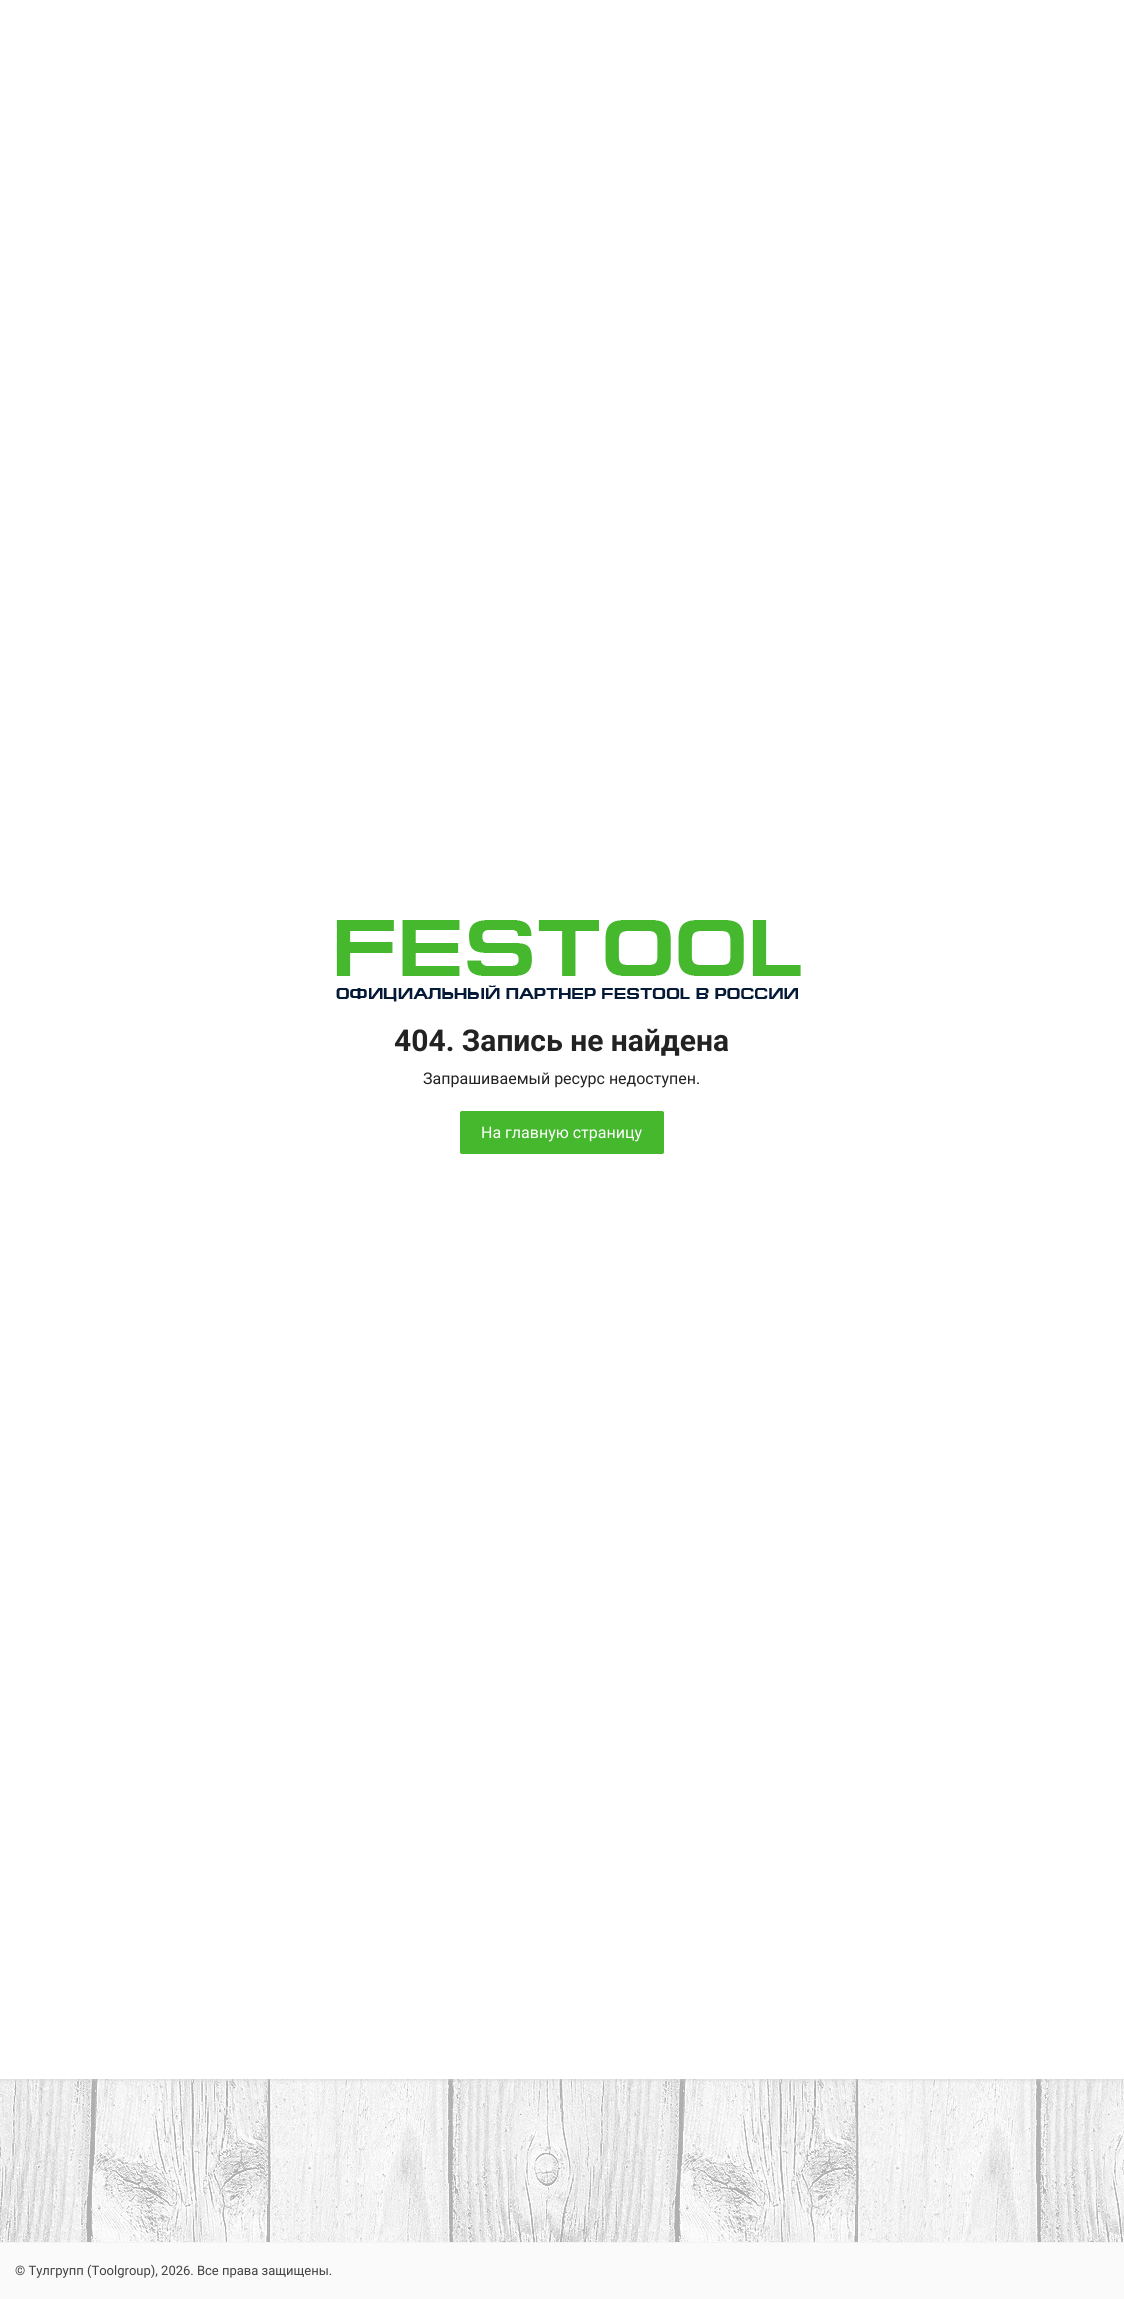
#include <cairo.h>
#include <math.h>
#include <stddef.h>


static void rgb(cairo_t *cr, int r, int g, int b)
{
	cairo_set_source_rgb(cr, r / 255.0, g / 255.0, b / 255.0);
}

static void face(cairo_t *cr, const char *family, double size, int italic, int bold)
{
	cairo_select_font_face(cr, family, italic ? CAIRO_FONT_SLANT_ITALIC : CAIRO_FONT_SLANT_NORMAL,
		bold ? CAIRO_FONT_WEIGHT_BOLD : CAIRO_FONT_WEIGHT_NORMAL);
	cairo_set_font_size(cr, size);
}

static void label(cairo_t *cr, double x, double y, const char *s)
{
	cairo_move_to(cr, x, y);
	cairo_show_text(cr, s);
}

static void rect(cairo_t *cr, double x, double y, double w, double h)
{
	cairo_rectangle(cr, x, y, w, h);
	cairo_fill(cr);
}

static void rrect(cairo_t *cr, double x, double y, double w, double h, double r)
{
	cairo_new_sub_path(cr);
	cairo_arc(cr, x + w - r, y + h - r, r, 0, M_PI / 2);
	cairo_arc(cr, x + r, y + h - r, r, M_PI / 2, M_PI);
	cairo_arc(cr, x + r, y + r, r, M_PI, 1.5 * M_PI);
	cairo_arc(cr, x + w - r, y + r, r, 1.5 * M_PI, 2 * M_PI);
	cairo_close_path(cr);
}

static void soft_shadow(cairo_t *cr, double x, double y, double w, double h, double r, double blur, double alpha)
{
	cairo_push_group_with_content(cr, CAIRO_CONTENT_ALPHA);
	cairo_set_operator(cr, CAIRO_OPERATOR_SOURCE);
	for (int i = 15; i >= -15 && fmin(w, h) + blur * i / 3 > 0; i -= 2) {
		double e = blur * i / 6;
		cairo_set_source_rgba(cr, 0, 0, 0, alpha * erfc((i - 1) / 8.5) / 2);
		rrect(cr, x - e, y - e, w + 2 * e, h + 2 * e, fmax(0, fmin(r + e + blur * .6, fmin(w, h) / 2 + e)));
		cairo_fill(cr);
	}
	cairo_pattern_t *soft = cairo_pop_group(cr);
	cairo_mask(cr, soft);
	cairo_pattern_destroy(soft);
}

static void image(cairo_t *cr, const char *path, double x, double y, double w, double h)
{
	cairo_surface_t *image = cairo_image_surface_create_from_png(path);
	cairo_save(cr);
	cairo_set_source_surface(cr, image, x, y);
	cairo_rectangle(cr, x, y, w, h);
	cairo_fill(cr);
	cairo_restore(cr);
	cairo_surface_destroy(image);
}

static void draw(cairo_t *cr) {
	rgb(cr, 255, 255, 255);
	cairo_paint(cr);
	image(cr, "image0.png", 0, 2079, 1124, 163);
	rgb(cr, 204, 204, 204);
	soft_shadow(cr, 0, 0, 1124, 2079, 0, 2.5, 1);
	rgb(cr, 255, 255, 255);
	rect(cr, 0, 0, 1124, 2079);
	image(cr, "image1.png", 336, 920, 465, 82);
	face(cr, "Roboto", 30, 0, 1);
	rgb(cr, 34, 34, 34);
	label(cr, 394, 1051, "404. Запись не найдена");
	face(cr, "Roboto", 16, 0, 0);
	label(cr, 423, 1084, "Запрашиваемый ресурс недоступен.");
	rgb(cr, 70, 184, 46);
	rrect(cr, 460.5, 1111.5, 203, 42, 1.5);
	cairo_fill_preserve(cr);
	cairo_set_line_width(cr, 1);
	cairo_stroke(cr);
	rgb(cr, 255, 255, 255);
	label(cr, 481, 1138, "На главную страницу");
	rgb(cr, 250, 250, 250);
	rect(cr, 0, 2243, 1124, 56);
	rgb(cr, 244, 244, 244);
	rect(cr, 0, 2242, 1124, 1);
	face(cr, "Roboto", 13, 0, 0);
	rgb(cr, 66, 66, 66);
	label(cr, 15, 2275, "© Тулгрупп (Toolgroup), 2026. Все права защищены.");
}

int main(void) {
	cairo_surface_t *surface = cairo_image_surface_create(CAIRO_FORMAT_RGB24, 1124, 2299);
	cairo_t *cr = cairo_create(surface);
	cairo_font_options_t *options = cairo_font_options_create();
	cairo_font_options_set_hint_metrics(options, CAIRO_HINT_METRICS_OFF);
	cairo_font_options_set_hint_style(options, CAIRO_HINT_STYLE_NONE);
	cairo_set_font_options(cr, options);
	cairo_set_miter_limit(cr, 4);
	draw(cr);
	cairo_surface_write_to_png(surface, "render.png");
	cairo_font_options_destroy(options);
	cairo_destroy(cr);
	cairo_surface_destroy(surface);
	return 0;
}
